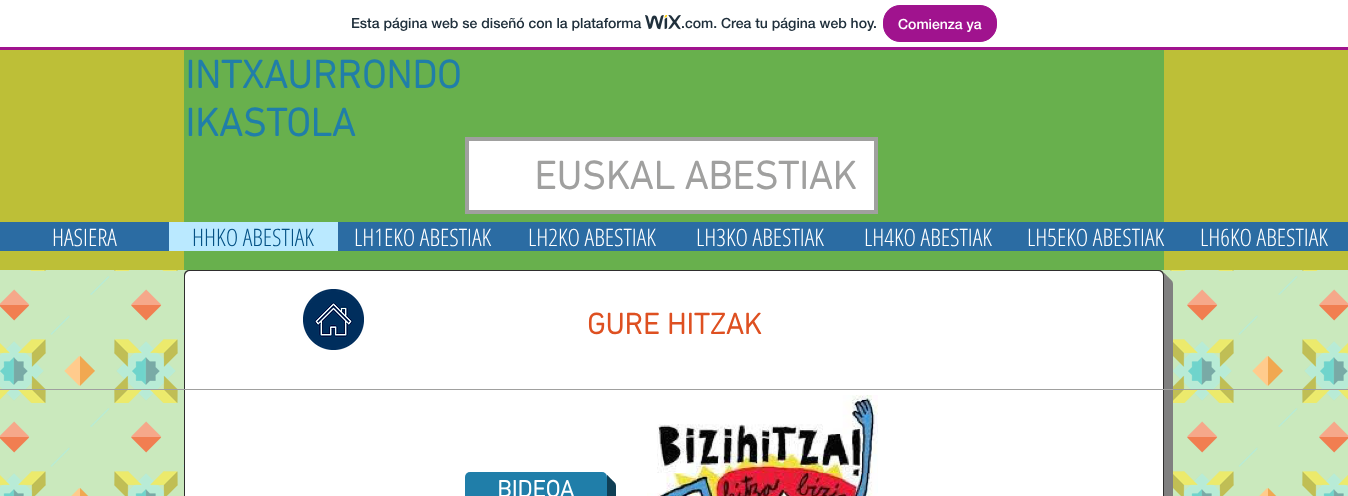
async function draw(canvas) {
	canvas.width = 1348;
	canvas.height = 496;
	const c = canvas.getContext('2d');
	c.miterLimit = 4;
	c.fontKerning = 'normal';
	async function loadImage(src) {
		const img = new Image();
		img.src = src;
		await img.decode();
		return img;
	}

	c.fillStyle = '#fff';
	c.fillRect(0, 0, 1348, 496);
	c.fillStyle = '#a0138e';
	c.fillRect(0, 47, 1348, 3);
	c.font = '500 14px "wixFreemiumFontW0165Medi"';
	c.fillStyle = '#20303c';
	c.fillText('Esta página web se diseñó con la plataforma', 351, 28);
	c.drawImage(await loadImage('img1.png'), 645, 15, 36, 15);
	c.fillText('.com. Crea tu página web hoy.', 681, 28);
	c.fillStyle = '#a0138e';
	c.beginPath();
	c.roundRect(883.5, 5.5, 113, 36, 16.5);
	c.fill();
	c.strokeStyle = '#a0138e';
	c.stroke();
	c.fillStyle = '#fff';
	c.fillText('Comienza ya', 898, 29);
	c.fillStyle = '#bdbf37';
	c.fillRect(0, 50, 1348, 220);
	c.fillStyle = '#68b04d';
	c.fillRect(184, 50, 980, 220);
	c.font = 'bold 40px "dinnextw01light"';
	c.fillStyle = '#207ea9';
	c.fillText('INTXAURRONDO', 185, 88);
	c.fillText('IKASTOLA', 185, 136);
	c.fillStyle = '#fff';
	c.beginPath();
	c.rect(467, 139, 409, 73);
	c.fill();
	c.strokeStyle = '#a0a09f';
	c.lineWidth = 4;
	c.stroke();
	c.fillStyle = '#a0a09f';
	c.fillText('EUSKAL ABESTIAK', 534, 189);
	c.fillStyle = '#2b6ca3';
	c.fillRect(0, 222, 169, 29);
	c.font = '300 24px Open Sans Condensed';
	c.fillStyle = '#fff';
	c.fillText('HASIERA', 52, 246);
	c.fillStyle = '#bae9ff';
	c.fillRect(169, 222, 169, 29);
	c.fillStyle = '#045184';
	c.fillText('HHKO ABESTIAK', 192, 246);
	c.fillStyle = '#2b6ca3';
	c.fillRect(338, 222, 1010, 29);
	c.fillStyle = '#fff';
	for (const [text, x, y] of [
		['LH1EKO ABESTIAK', 354, 246],
		['LH2KO ABESTIAK', 528, 246],
		['LH3KO ABESTIAK', 696, 246],
		['LH4KO ABESTIAK', 864, 246],
		['LH5EKO ABESTIAK', 1027, 246],
		['LH6KO ABESTIAK', 1200, 246],
	]) {
		c.fillText(text, x, y);
	}
	c.fillStyle = '#cae9bd';
	c.fillRect(0, 270, 1348, 226);
	c.drawImage(await loadImage('img4.png'), 0, 270, 1348, 226);
	c.fillStyle = '#808080';
	c.beginPath();
	c.moveTo(193, 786);
	c.lineTo(193, 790);
	c.bezierCurveTo(193, 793, 195, 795, 198, 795);
	c.lineTo(1168, 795);
	c.bezierCurveTo(1171, 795, 1173, 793, 1173, 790);
	c.lineTo(1173, 284);
	c.bezierCurveTo(1173, 281, 1171, 279, 1168, 279);
	c.lineTo(1164, 279);
	c.lineTo(1164, 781);
	c.bezierCurveTo(1164, 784, 1162, 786, 1159, 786);
	c.closePath();
	c.fill();
	c.beginPath();
	c.moveTo(191, 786);
	c.lineTo(191, 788);
	c.bezierCurveTo(191, 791, 193, 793, 196, 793);
	c.lineTo(1166, 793);
	c.bezierCurveTo(1169, 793, 1171, 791, 1171, 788);
	c.lineTo(1171, 282);
	c.bezierCurveTo(1171, 279, 1169, 277, 1166, 277);
	c.lineTo(1164, 277);
	c.lineTo(1164, 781);
	c.bezierCurveTo(1164, 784, 1162, 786, 1159, 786);
	c.closePath();
	c.fill();
	c.beginPath();
	c.moveTo(189, 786);
	c.bezierCurveTo(189, 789, 191, 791, 194, 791);
	c.lineTo(1164, 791);
	c.bezierCurveTo(1167, 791, 1169, 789, 1169, 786);
	c.lineTo(1169, 280);
	c.bezierCurveTo(1169, 277, 1167, 275, 1164, 275);
	c.lineTo(1164, 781);
	c.bezierCurveTo(1164, 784, 1162, 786, 1159, 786);
	c.closePath();
	c.fill();
	c.beginPath();
	c.moveTo(187, 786);
	c.bezierCurveTo(188, 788, 190, 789, 192, 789);
	c.lineTo(1162, 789);
	c.bezierCurveTo(1165, 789, 1167, 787, 1167, 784);
	c.lineTo(1167, 278);
	c.bezierCurveTo(1167, 276, 1166, 274, 1164, 273);
	c.lineTo(1164, 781);
	c.bezierCurveTo(1164, 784, 1162, 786, 1159, 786);
	c.closePath();
	c.fill();
	c.beginPath();
	c.moveTo(186, 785);
	c.bezierCurveTo(187, 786, 188, 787, 190, 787);
	c.lineTo(1160, 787);
	c.bezierCurveTo(1163, 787, 1165, 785, 1165, 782);
	c.lineTo(1165, 276);
	c.bezierCurveTo(1165, 274, 1164, 273, 1163, 272);
	c.bezierCurveTo(1164, 273, 1164, 274, 1164, 275);
	c.lineTo(1164, 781);
	c.bezierCurveTo(1164, 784, 1162, 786, 1159, 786);
	c.lineTo(189, 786);
	c.bezierCurveTo(188, 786, 187, 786, 186, 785);
	c.closePath();
	c.fill();
	c.fillStyle = '#2f2e2e';
	c.beginPath();
	c.roundRect(184, 270, 980, 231, 5);
	c.fill();
	c.fillStyle = '#fff';
	c.beginPath();
	c.roundRect(185, 271, 978, 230, 5);
	c.fill();
	c.drawImage(await loadImage('img2.png'), 303, 289, 61, 61);
	c.font = 'bold 30px "dinnextw01light"';
	c.fillStyle = '#de5021';
	c.fillText('GURE HITZAK', 587, 334);
	c.fillStyle = '#a0a09f';
	c.fillRect(0, 389, 1348, 1);
	c.fillStyle = '#103f55';
	c.beginPath();
	c.moveTo(474, 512);
	c.lineTo(474, 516);
	c.bezierCurveTo(474, 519, 476, 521, 479, 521);
	c.lineTo(611, 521);
	c.bezierCurveTo(614, 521, 616, 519, 616, 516);
	c.lineTo(616, 486);
	c.bezierCurveTo(616, 483, 614, 481, 611, 481);
	c.lineTo(607, 481);
	c.lineTo(607, 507);
	c.bezierCurveTo(607, 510, 605, 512, 602, 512);
	c.closePath();
	c.fill();
	c.beginPath();
	c.moveTo(472, 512);
	c.lineTo(472, 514);
	c.bezierCurveTo(472, 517, 474, 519, 477, 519);
	c.lineTo(609, 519);
	c.bezierCurveTo(612, 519, 614, 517, 614, 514);
	c.lineTo(614, 484);
	c.bezierCurveTo(614, 481, 612, 479, 609, 479);
	c.lineTo(607, 479);
	c.lineTo(607, 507);
	c.bezierCurveTo(607, 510, 605, 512, 602, 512);
	c.closePath();
	c.fill();
	c.beginPath();
	c.moveTo(470, 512);
	c.bezierCurveTo(470, 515, 472, 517, 475, 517);
	c.lineTo(607, 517);
	c.bezierCurveTo(610, 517, 612, 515, 612, 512);
	c.lineTo(612, 482);
	c.bezierCurveTo(612, 479, 610, 477, 607, 477);
	c.lineTo(607, 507);
	c.bezierCurveTo(607, 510, 605, 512, 602, 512);
	c.closePath();
	c.fill();
	c.beginPath();
	c.moveTo(468, 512);
	c.bezierCurveTo(469, 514, 471, 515, 473, 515);
	c.lineTo(605, 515);
	c.bezierCurveTo(608, 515, 610, 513, 610, 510);
	c.lineTo(610, 480);
	c.bezierCurveTo(610, 478, 609, 476, 607, 475);
	c.lineTo(607, 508);
	c.bezierCurveTo(605, 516, 587, 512, 580, 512);
	c.closePath();
	c.fill();
	c.beginPath();
	c.moveTo(467, 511);
	c.bezierCurveTo(468, 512, 469, 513, 471, 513);
	c.lineTo(603, 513);
	c.bezierCurveTo(606, 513, 608, 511, 608, 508);
	c.lineTo(608, 478);
	c.bezierCurveTo(608, 476, 607, 475, 606, 474);
	c.bezierCurveTo(607, 475, 607, 476, 607, 477);
	c.lineTo(607, 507);
	c.bezierCurveTo(607, 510, 605, 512, 602, 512);
	c.lineTo(470, 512);
	c.bezierCurveTo(469, 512, 468, 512, 467, 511);
	c.closePath();
	c.fill();
	c.fillStyle = '#207ea9';
	c.beginPath();
	c.roundRect(465, 472, 142, 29, 5);
	c.fill();
	c.font = 'bold 24px "dinnextw01light"';
	c.fillStyle = '#fff';
	c.fillText('BIDEOA', 497, 497);
	c.drawImage(await loadImage('img3.png'), 647, 395, 231, 101);
}

draw(document.querySelector('canvas'));
